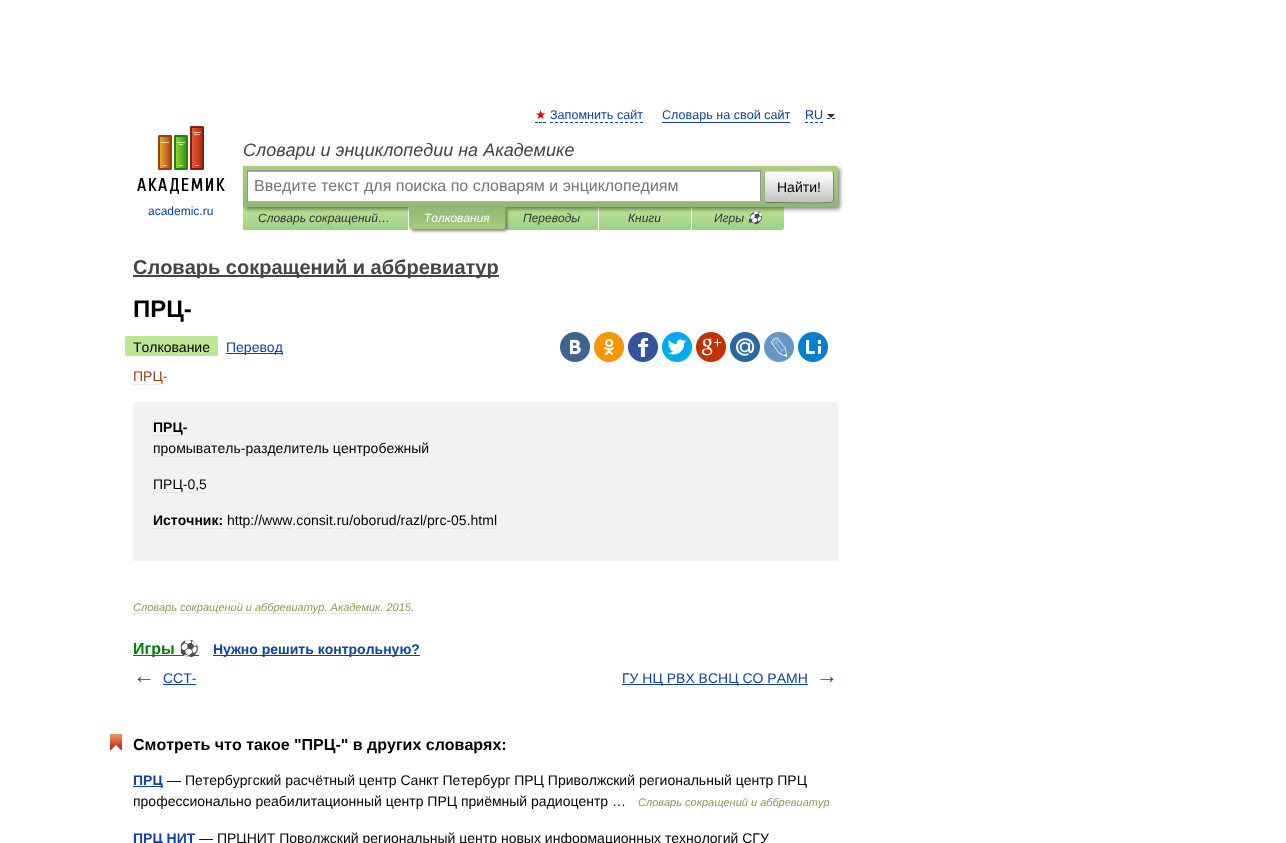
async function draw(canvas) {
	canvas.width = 1286;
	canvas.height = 843;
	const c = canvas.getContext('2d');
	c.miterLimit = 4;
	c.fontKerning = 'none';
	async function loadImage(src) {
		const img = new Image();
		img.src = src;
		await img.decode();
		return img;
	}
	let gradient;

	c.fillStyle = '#fff';
	c.fillRect(0, 0, 1286, 843);
	c.font = '12.6px DejaVu Sans';
	c.fillStyle = '#c00';
	c.fillText('★', 535, 119);
	c.beginPath();
	c.moveTo(535, 122.5);
	c.lineTo(538, 122.5);
	c.moveTo(539, 122.5);
	c.lineTo(542, 122.5);
	c.moveTo(543, 122.5);
	c.lineTo(546, 122.5);
	c.strokeStyle = '#04a';
	c.stroke();
	c.font = '12.6px Liberation Sans';
	c.fillStyle = '#0d44a0';
	c.fillText('Запомнить сайт', 550, 119);
	c.beginPath();
	c.moveTo(550, 122.5);
	c.lineTo(643, 122.5);
	c.setLineDash([3, 2]);
	c.stroke();
	c.fillText('Словарь на свой сайт', 662, 119);
	c.fillRect(662, 122, 128, 1);
	c.beginPath();
	c.moveTo(805, 122.5);
	c.lineTo(823, 122.5);
	c.stroke();
	c.beginPath();
	c.moveTo(827, 118.5);
	c.lineTo(830, 118.5);
	c.moveTo(832, 118.5);
	c.lineTo(835, 118.5);
	c.setLineDash([]);
	c.stroke();
	c.fillText('RU', 805, 119);
	c.fillStyle = '#333';
	c.beginPath();
	c.moveTo(827, 114);
	c.lineTo(835, 114);
	c.lineTo(831, 118);
	c.closePath();
	c.fill();
	c.font = 'italic 18px Liberation Sans';
	c.fillStyle = '#454545';
	c.fillText('Словари и энциклопедии на Академике', 243, 156);
	gradient = c.createLinearGradient(326, 207, 326, 230);
	gradient.addColorStop(0, '#bde693');
	gradient.addColorStop(1, '#a0ce8a');
	c.fillStyle = gradient;
	c.fillRect(243, 207, 165, 23);
	gradient = c.createLinearGradient(552, 207, 552, 230);
	gradient.addColorStop(0, '#bde693');
	gradient.addColorStop(1, '#a0ce8a');
	c.fillStyle = gradient;
	c.fillRect(506, 207, 92, 23);
	gradient = c.createLinearGradient(645, 207, 645, 230);
	gradient.addColorStop(0, '#bde693');
	gradient.addColorStop(1, '#a0ce8a');
	c.fillStyle = gradient;
	c.fillRect(599, 207, 92, 23);
	gradient = c.createLinearGradient(738, 207, 738, 230);
	gradient.addColorStop(0, '#bde693');
	gradient.addColorStop(1, '#a0ce8a');
	c.fillStyle = gradient;
	c.beginPath();
	c.roundRect(692, 207, 92, 23, [0, 0, 3, 0]);
	c.fill();
	c.fillStyle = '#00000080';
	c.filter = 'blur(2px)';
	c.beginPath();
	c.roundRect(245, 168, 595, 41, 3);
	c.fill();
	c.filter = 'none';
	gradient = c.createLinearGradient(541, 166, 541, 207);
	gradient.addColorStop(0, '#abcf7e');
	gradient.addColorStop(1, '#8eb874');
	c.fillStyle = gradient;
	c.beginPath();
	c.roundRect(243, 166, 595, 41, [0, 3, 3, 0]);
	c.fill();
	for (const [x, y, w, h, color] of [
		[248, 172, 512, 29, '#fff'],
		[248, 171, 512, 1, '#b3b3b3'],
		[247, 170, 514, 1, '#949494'],
		[760, 170, 1, 32, '#949494'],
		[247, 201, 514, 1, '#b4b4b4'],
		[247, 170, 1, 32, '#949494'],
	]) {
		c.fillStyle = color;
		c.fillRect(x, y, w, h);
	}
	c.font = '16px Liberation Sans';
	c.fillStyle = '#757575';
	c.fillText('Введите текст для поиска по словарям и энциклопедиям', 254, 191);
	c.save();
	c.beginPath();
	c.roundRect(764, 171, 70, 32, 3);
	c.clip();
	gradient = c.createLinearGradient(799, 142, 799, 172);
	gradient.addColorStop(0, '#fff');
	gradient.addColorStop(1, '#c1c1c1');
	c.fillStyle = gradient;
	c.fillRect(764, 171, 70, 1);
	gradient = c.createLinearGradient(799, 172, 799, 202);
	gradient.addColorStop(0, '#fff');
	gradient.addColorStop(1, '#c1c1c1');
	c.fillStyle = gradient;
	c.fillRect(764, 172, 70, 30);
	gradient = c.createLinearGradient(799, 202, 799, 232);
	gradient.addColorStop(0, '#fff');
	gradient.addColorStop(1, '#c1c1c1');
	c.fillStyle = gradient;
	c.fillRect(764, 202, 70, 1);
	c.restore();
	c.beginPath();
	c.moveTo(765, 172);
	c.lineTo(767, 171.5);
	c.lineTo(777.5, 171.5);
	c.bezierCurveTo(784, 171.5, 830.5, 170.5, 832.5, 172);
	c.lineTo(833, 172);
	c.strokeStyle = '#d1e4bc';
	c.stroke();
	c.beginPath();
	c.moveTo(833, 172);
	c.bezierCurveTo(833, 172.5, 833.5, 173.5, 833.5, 174);
	c.lineTo(833.5, 200);
	c.bezierCurveTo(833.5, 200.5, 833, 201.5, 833, 202);
	c.strokeStyle = '#7a8e69';
	c.stroke();
	c.beginPath();
	c.moveTo(833, 202);
	c.lineTo(832.5, 202);
	c.bezierCurveTo(830.5, 203.5, 784, 202.5, 777.5, 202.5);
	c.lineTo(767, 202.5);
	c.lineTo(765, 202);
	c.strokeStyle = '#5d7250';
	c.stroke();
	c.beginPath();
	c.moveTo(765, 202);
	c.bezierCurveTo(765, 201.5, 764.5, 200.5, 764.5, 200);
	c.lineTo(764.5, 174);
	c.bezierCurveTo(764.5, 173.5, 765, 172.5, 765, 172);
	c.strokeStyle = '#9aae89';
	c.stroke();
	c.font = '14px Liberation Sans';
	c.fillStyle = '#000';
	c.fillText('Найти!', 777, 192);
	c.drawImage(await loadImage('img1.png'), 137, 126, 88, 68);
	c.font = '12px Liberation Sans';
	c.fillStyle = '#0d44a0';
	c.fillText('academic.ru', 148, 215);
	c.font = 'italic 12px Liberation Sans';
	c.fillStyle = '#353535';
	c.fillText('Словарь сокращений…', 258, 222);
	c.fillStyle = '#00000080';
	c.filter = 'blur(1.5px)';
	c.beginPath();
	c.roundRect(411, 209, 96, 22, 3);
	c.fill();
	c.filter = 'none';
	gradient = c.createLinearGradient(457, 207, 457, 229);
	gradient.addColorStop(0, '#8fb875');
	gradient.addColorStop(1, '#a7cc7d');
	c.fillStyle = gradient;
	c.beginPath();
	c.roundRect(409, 207, 96, 22, [0, 0, 3, 3]);
	c.fill();
	c.fillStyle = '#fff';
	c.fillText('Толкования', 424, 222);
	c.fillStyle = '#353535';
	for (const [text, x, y] of [
		['Переводы', 523, 222],
		['Книги', 628, 222],
		['Игры', 714, 222],
	]) {
		c.fillText(text, x, y);
	}
	c.font = 'italic 12px Noto Color Emoji';
	c.fillText('⚽', 747, 222);
	c.fillStyle = '#454545';
	c.fillRect(133, 275, 366, 2);
	c.font = 'bold 20px Liberation Sans';
	c.fillText('Словарь сокращений и аббревиатур', 133, 274);
	c.font = 'bold 24px Liberation Sans';
	c.fillStyle = '#000';
	c.fillText('ПРЦ-', 133, 317);
	c.fillStyle = '#bde693';
	c.beginPath();
	c.roundRect(133, 336, 85, 20, [0, 2, 2, 0]);
	c.fill();
	c.font = '14px Liberation Sans';
	c.fillStyle = '#000';
	c.fillText('Толкование', 133, 352);
	c.fillStyle = '#bde693';
	c.beginPath();
	c.roundRect(125, 336, 8, 20, [2, 0, 0, 2]);
	c.fill();
	c.fillStyle = '#0d44a0';
	c.fillRect(226, 353, 57, 1);
	c.fillText('Перевод', 226, 352);
	c.drawImage(await loadImage('img2.png'), 560, 332, 30, 30);
	c.drawImage(await loadImage('img3.png'), 594, 332, 30, 30);
	c.drawImage(await loadImage('img4.png'), 628, 332, 30, 30);
	c.drawImage(await loadImage('img5.png'), 662, 332, 30, 30);
	c.drawImage(await loadImage('img6.png'), 696, 332, 30, 30);
	c.drawImage(await loadImage('img7.png'), 730, 332, 30, 30);
	c.drawImage(await loadImage('img8.png'), 764, 332, 30, 30);
	c.drawImage(await loadImage('img9.png'), 798, 332, 30, 30);
	c.fillStyle = '#8b4513';
	c.fillText('ПРЦ-', 133, 381);
	c.beginPath();
	c.moveTo(133, 384.5);
	c.lineTo(163, 384.5);
	c.strokeStyle = '#d9d9d9';
	c.setLineDash([1, 1]);
	c.stroke();
	c.fillStyle = '#f2f2f2';
	c.fillRect(133, 402, 705, 159);
	c.font = 'bold 14px Liberation Sans';
	c.fillStyle = '#000';
	c.fillText('ПРЦ-', 153, 432);
	c.beginPath();
	c.moveTo(153, 435.5);
	c.lineTo(183, 435.5);
	c.stroke();
	c.font = '14px Liberation Sans';
	c.fillText('промыватель-разделитель центробежный', 153, 453);
	c.beginPath();
	c.moveTo(153, 456.5);
	c.lineTo(241, 456.5);
	c.stroke();
	c.beginPath();
	c.moveTo(245, 456.5);
	c.lineTo(329, 456.5);
	c.stroke();
	c.beginPath();
	c.moveTo(333, 456.5);
	c.lineTo(429, 456.5);
	c.stroke();
	c.fillText('ПРЦ-0,5', 153, 489);
	c.beginPath();
	c.moveTo(153, 492.5);
	c.lineTo(183, 492.5);
	c.stroke();
	c.beginPath();
	c.moveTo(187, 492.5);
	c.lineTo(195, 492.5);
	c.moveTo(199, 492.5);
	c.lineTo(207, 492.5);
	c.stroke();
	c.font = 'bold 14px Liberation Sans';
	c.fillText('Источник:', 153, 525);
	c.beginPath();
	c.moveTo(153, 528.5);
	c.lineTo(223, 528.5);
	c.stroke();
	c.font = '14px Liberation Sans';
	c.fillText('http://www.consit.ru/oborud/razl/prc-05.html', 227, 525);
	c.beginPath();
	c.moveTo(227, 528.5);
	c.lineTo(254, 528.5);
	c.stroke();
	c.beginPath();
	c.moveTo(262, 528.5);
	c.lineTo(292, 528.5);
	c.stroke();
	c.beginPath();
	c.moveTo(296, 528.5);
	c.lineTo(333, 528.5);
	c.moveTo(337, 528.5);
	c.lineTo(349, 528.5);
	c.stroke();
	c.beginPath();
	c.moveTo(353, 528.5);
	c.lineTo(397, 528.5);
	c.stroke();
	c.beginPath();
	c.moveTo(401, 528.5);
	c.lineTo(423, 528.5);
	c.moveTo(427, 528.5);
	c.lineTo(446, 528.5);
	c.stroke();
	c.beginPath();
	c.moveTo(451, 528.5);
	c.lineTo(467, 528.5);
	c.moveTo(471, 528.5);
	c.lineTo(497, 528.5);
	c.stroke();
	c.beginPath();
	c.moveTo(133, 613.5);
	c.lineTo(177, 613.5);
	c.stroke();
	c.font = 'italic 11px Liberation Sans';
	c.fillStyle = '#939756';
	c.fillText('Словарь', 133, 611);
	c.beginPath();
	c.moveTo(180, 613.5);
	c.lineTo(243, 613.5);
	c.stroke();
	c.fillText('сокращений и', 180, 611);
	c.beginPath();
	c.moveTo(246, 613.5);
	c.lineTo(247, 613.5);
	c.moveTo(248, 613.5);
	c.lineTo(249, 613.5);
	c.moveTo(250, 613.5);
	c.lineTo(251, 613.5);
	c.setLineDash([]);
	c.stroke();
	c.beginPath();
	c.moveTo(255, 613.5);
	c.lineTo(325, 613.5);
	c.setLineDash([1, 1]);
	c.stroke();
	c.fillText('аббревиатур. Академик. 2015.', 255, 611);
	c.beginPath();
	c.moveTo(331, 613.5);
	c.lineTo(381, 613.5);
	c.stroke();
	c.beginPath();
	c.moveTo(387, 613.5);
	c.lineTo(411, 613.5);
	c.stroke();
	c.fillStyle = '#008000';
	c.fillRect(133, 655, 66, 1);
	c.font = 'bold 16px Liberation Sans';
	c.fillText('Игры', 133, 654);
	c.font = 'bold 16px Noto Color Emoji';
	c.fillText('⚽', 179, 654);
	c.fillStyle = '#0d44a0';
	c.fillRect(213, 655, 207, 1);
	c.font = 'bold 14px Liberation Sans';
	c.fillText('Нужно решить контрольную?', 213, 654);
	c.font = 'bold 22px Liberation Sans';
	c.fillText('←', 133, 683);
	c.font = '14px Liberation Sans';
	c.fillText('ССТ-', 163, 683);
	c.fillRect(163, 684, 33, 1);
	c.fillRect(622, 684, 186, 1);
	c.fillText('ГУ НЦ РВХ ВСНЦ СО РАМН', 622, 683);
	c.font = 'bold 22px Liberation Sans';
	c.fillText('→', 816, 683);
	c.drawImage(await loadImage('img10.png'), 110, 734, 12, 16);
	c.font = 'bold 16px Liberation Sans';
	c.fillStyle = '#000';
	c.fillText('Смотреть что такое "ПРЦ-" в других словарях:', 133, 750);
	c.fillStyle = '#0d44a0';
	c.fillRect(133, 786, 30, 1);
	c.font = 'bold 14px Liberation Sans';
	c.fillText('ПРЦ', 133, 785);
	c.font = '14px Liberation Sans';
	c.fillStyle = '#000';
	c.fillText('— Петербургский расчётный центр Санкт Петербург ПРЦ Приволжский региональный центр ПРЦ', 167, 785);
	c.fillText('профессионально реабилитационный центр ПРЦ приёмный радиоцентр …', 133, 806);
	c.font = 'italic 11px Liberation Sans';
	c.fillStyle = '#939756';
	c.fillText('Словарь сокращений и аббревиатур', 638, 806);
	c.font = 'bold 14px Liberation Sans';
	c.fillStyle = '#0d44a0';
	c.fillText('ПРЦ НИТ', 133, 843);
	c.font = '14px Liberation Sans';
	c.fillStyle = '#000';
	c.fillText('— ПРЦНИТ Поволжский региональный центр новых информационных технологий СГУ', 199, 843);
}

draw(document.querySelector('canvas'));
